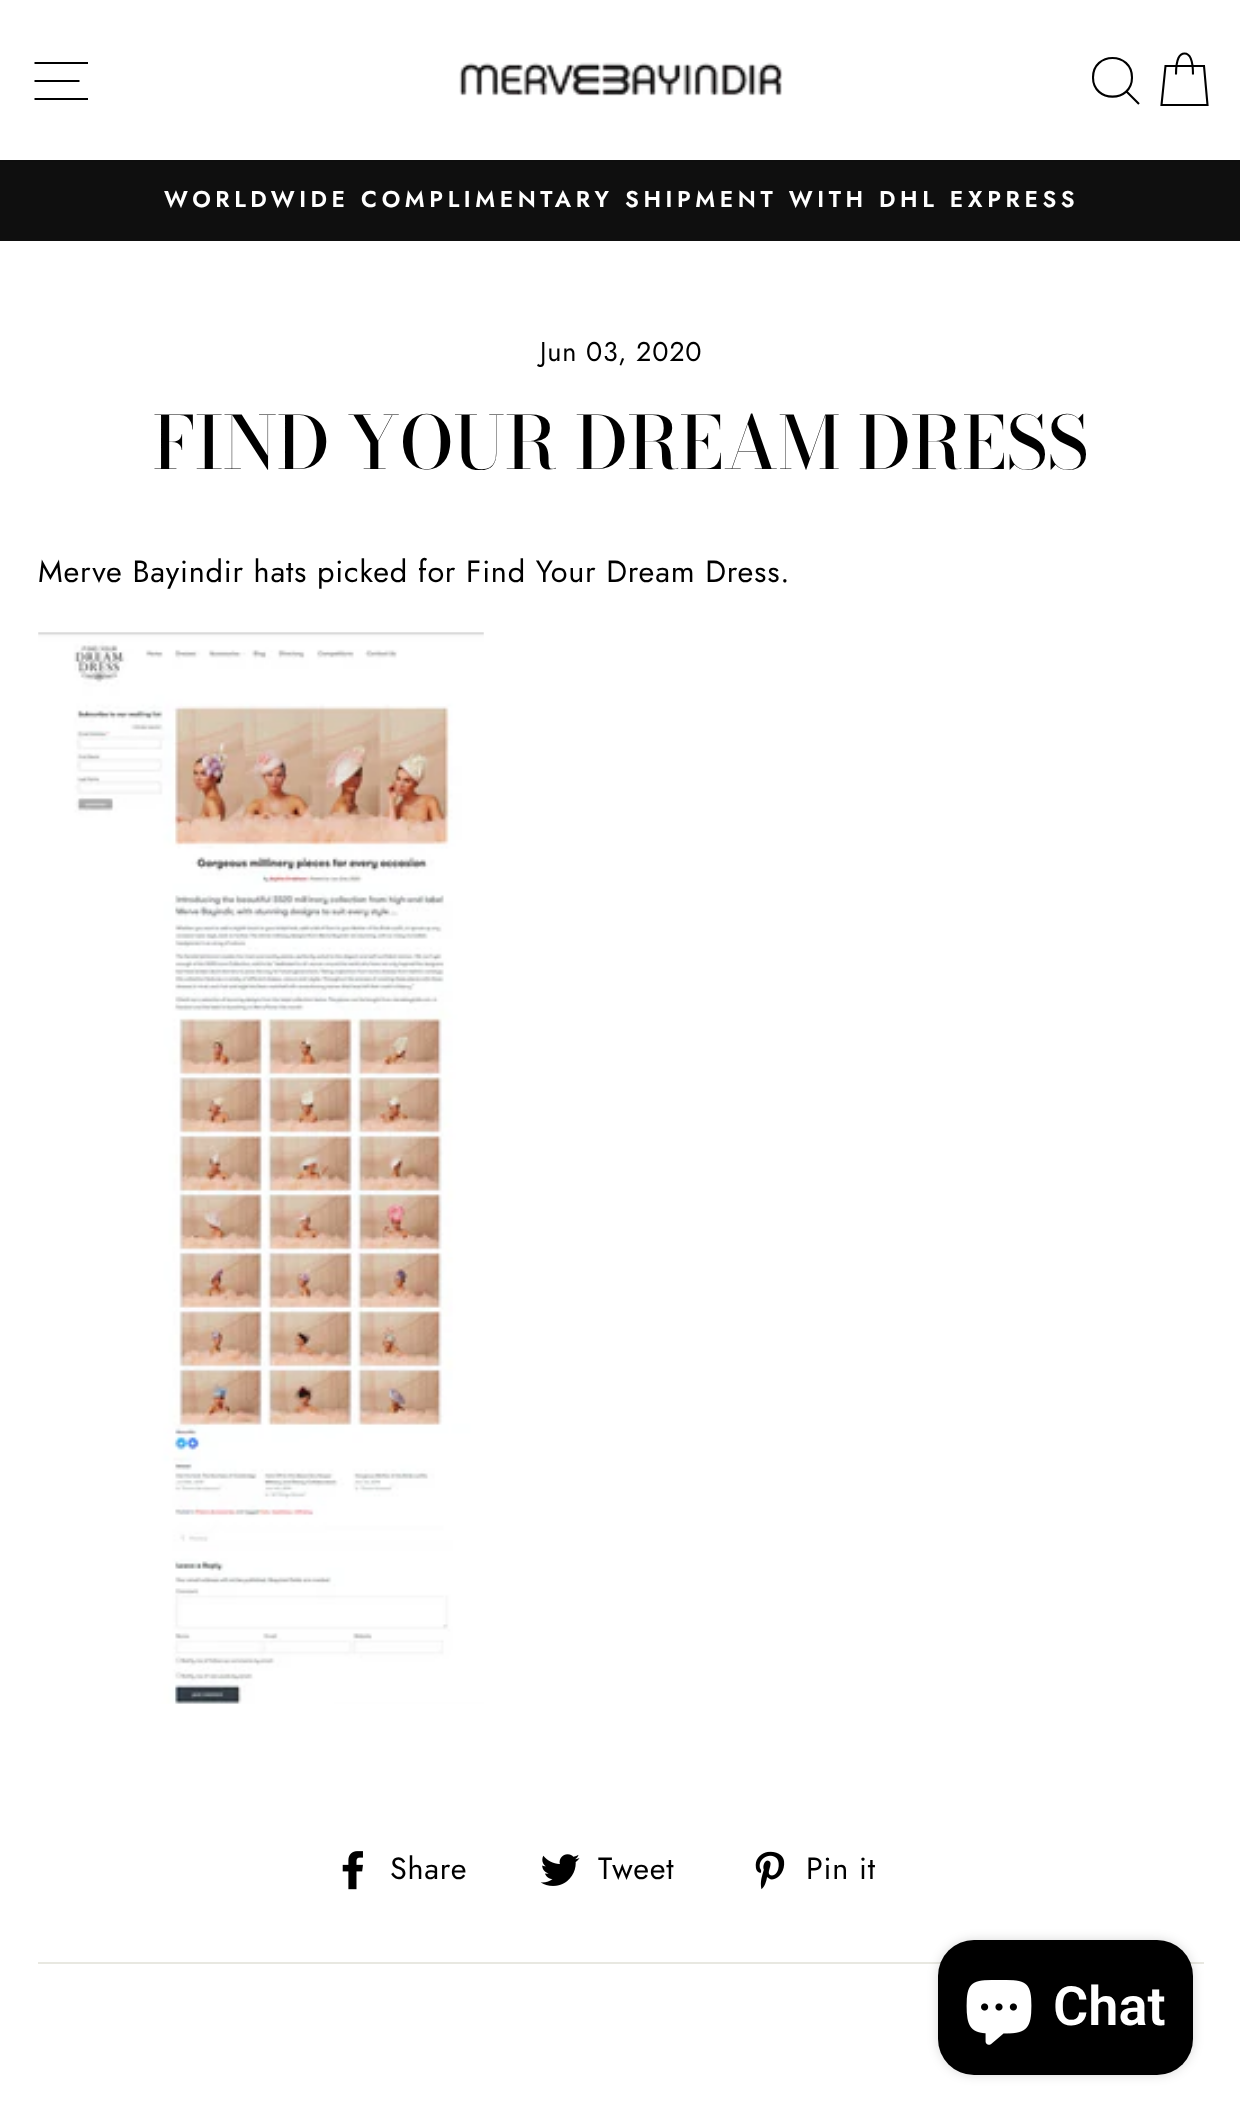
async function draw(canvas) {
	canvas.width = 1240;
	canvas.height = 2121;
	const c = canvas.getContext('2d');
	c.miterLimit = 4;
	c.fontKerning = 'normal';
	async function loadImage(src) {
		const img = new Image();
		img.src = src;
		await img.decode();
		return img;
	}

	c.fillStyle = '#fff';
	c.fillRect(0, 0, 1240, 2121);
	c.fillStyle = '#0f0f0f';
	c.fillRect(0, 160, 1240, 81);
	c.fillStyle = '#00000033';
	c.filter = 'blur(1px)';
	c.beginPath();
	c.rect(0, 0, 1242, 160);
	c.fill();
	c.filter = 'none';
	c.fillStyle = '#fff';
	c.fillRect(0, 0, 1240, 160);
	c.beginPath();
	c.moveTo(34.5, 63);
	c.lineTo(88, 63);
	c.moveTo(34.5, 81);
	c.lineTo(79.5, 81);
	c.moveTo(34.5, 99);
	c.lineTo(88, 99);
	c.strokeStyle = '#000';
	c.lineWidth = 2.1;
	c.stroke();
	c.drawImage(await loadImage('img1.png'), 459, 62, 324, 34);
	c.beginPath();
	c.moveTo(1132, 77.5);
	c.bezierCurveTo(1132, 103, 1093, 103, 1093, 77.5);
	c.bezierCurveTo(1093, 51.5, 1132, 51.5, 1132, 77.5);
	c.closePath();
	c.moveTo(1139, 104);
	c.lineTo(1126.5, 91.5);
	c.stroke();
	c.beginPath();
	c.moveTo(1176, 74.5);
	c.bezierCurveTo(1176, 58, 1180, 53.5, 1184.5, 53.5);
	c.bezierCurveTo(1189, 53.5, 1193, 58, 1193, 74.5);
	c.moveTo(1165.5, 66);
	c.lineTo(1204, 66);
	c.lineTo(1207.5, 105);
	c.lineTo(1161.5, 105);
	c.closePath();
	c.stroke();
	c.letterSpacing = '4.6px';
	c.font = '600 22.95px Jost';
	c.fillText('WORLDWIDE COMPLIMENTARY SHIPMENT WITH DHL EXPRESS', 164, 207);
	c.letterSpacing = '0.77px';
	c.font = '27px Jost';
	c.fillStyle = '#000';
	c.fillText('Jun 03, 2020', 540, 361);
	c.letterSpacing = '0px';
	c.font = '500 72.7px Bodoni Moda';
	c.fillText('FIND YOUR DREAM DRESS', 153, 469);
	c.letterSpacing = '0.77px';
	c.font = '30.6px Jost';
	c.fillText('Merve Bayindir hats picked for Find Your Dream Dress.', 38, 582);
	c.drawImage(await loadImage('img2.png'), 38, 632, 446, 1072);
	c.drawImage(await loadImage('img3.png'), 342, 1851, 21, 39);
	c.fillText('Share', 390, 1879);
	c.drawImage(await loadImage('img4.png'), 540, 1854, 40, 32);
	c.fillText('Tweet', 598, 1879);
	c.drawImage(await loadImage('img5.png'), 755, 1851, 30, 39);
	c.fillText('Pin it', 806, 1879);
	c.fillStyle = '#e8e8e1';
	c.fillRect(38, 1962, 1166, 2);
	c.fillStyle = '#00000026';
	c.filter = 'blur(5.5px)';
	c.beginPath();
	c.roundRect(938, 1940, 255, 135, 36);
	c.fill();
	c.filter = 'none';
	c.fillStyle = '#000';
	c.beginPath();
	c.roundRect(938, 1940, 255, 135, 36);
	c.fill();
	c.drawImage(await loadImage('img6.png'), 966, 1980, 66, 65);
	c.letterSpacing = '0px';
	c.font = '600 54px Roboto';
	c.fillStyle = '#fff';
	c.fillText('Chat', 1053, 2025);
}

draw(document.querySelector('canvas'));
